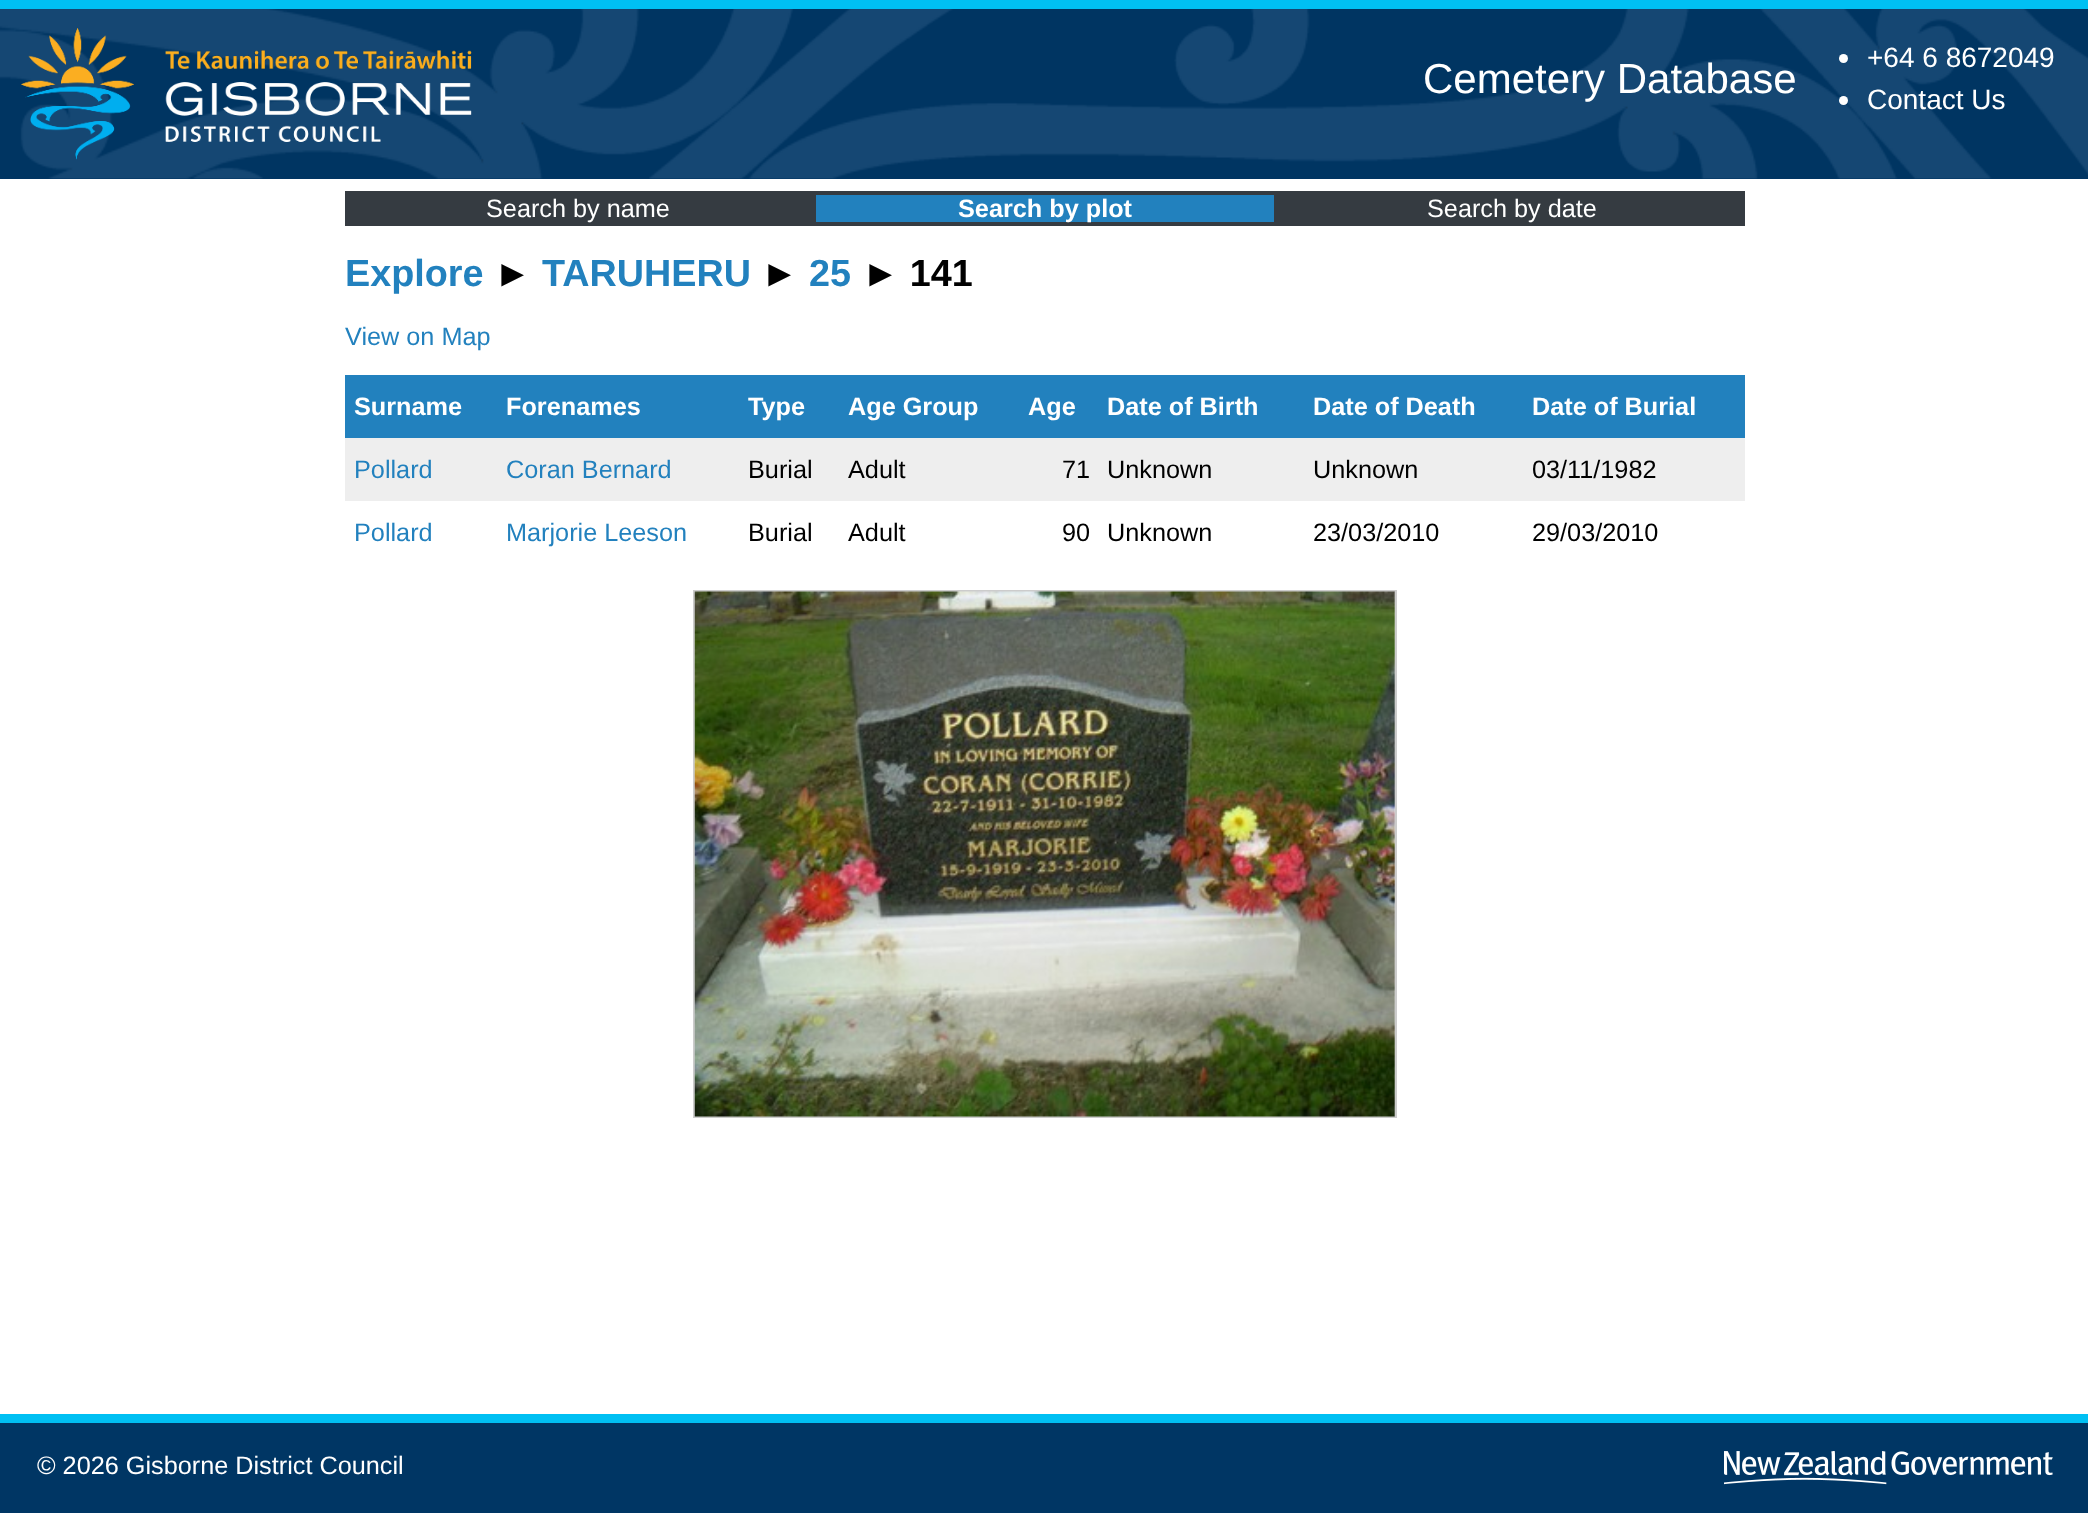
async function draw(canvas) {
	canvas.width = 2088;
	canvas.height = 1513;
	const c = canvas.getContext('2d');
	c.miterLimit = 4;
	c.fontKerning = 'normal';
	async function loadImage(src) {
		const img = new Image();
		img.src = src;
		await img.decode();
		return img;
	}

	c.fillStyle = '#fff';
	c.fillRect(0, 0, 2088, 1513);
	c.fillStyle = '#003562';
	c.fillRect(0, 178, 2088, 1);
	c.drawImage(await loadImage('img1.png'), 0, 9, 2088, 170);
	c.fillStyle = '#00c0f3';
	c.fillRect(0, 0, 2088, 9);
	c.drawImage(await loadImage('img2.png'), 21, 28, 113, 132);
	c.drawImage(await loadImage('img3.png'), 165, 50, 307, 92);
	c.font = '42px Liberation Sans';
	c.fillStyle = '#fff';
	c.fillText('Cemetery Database', 1423, 93);
	c.beginPath();
	c.arc(1843.5, 58.5, 4.5, 0, 2 * Math.PI);
	c.fill();
	c.font = '28px Liberation Sans';
	c.fillText('+64 6 8672049', 1867, 67);
	c.beginPath();
	c.arc(1843.5, 100.5, 4.5, 0, 2 * Math.PI);
	c.fill();
	c.fillText('Contact Us', 1867, 109);
	c.fillStyle = '#353b41';
	c.fillRect(345, 191, 1400, 35);
	c.font = '25.25px Liberation Sans';
	c.fillStyle = '#fff';
	c.fillText('Search by name', 486, 217);
	c.fillStyle = '#2281be';
	c.fillRect(816, 195, 458, 27);
	c.font = 'bold 25.25px Liberation Sans';
	c.fillStyle = '#fff';
	c.fillText('Search by plot', 958, 217);
	c.font = '25.25px Liberation Sans';
	c.fillText('Search by date', 1427, 217);
	c.font = 'bold 37.75px Liberation Sans';
	c.fillStyle = '#2281be';
	c.fillText('Explore', 345, 286);
	c.fillStyle = '#000';
	c.fillText('►', 494, 286);
	c.fillStyle = '#2281be';
	c.fillText('TARUHERU', 542, 286);
	c.fillStyle = '#000';
	c.fillText('►', 761, 286);
	c.fillStyle = '#2281be';
	c.fillText('25', 809, 286);
	c.fillStyle = '#000';
	c.fillText('► 141', 862, 286);
	c.font = '25.25px Liberation Sans';
	c.fillStyle = '#2281be';
	c.fillText('View on Map', 345, 345);
	c.fillRect(345, 375, 1400, 63);
	c.font = 'bold 25.25px Liberation Sans';
	c.fillStyle = '#fff';
	for (const [text, x, y] of [
		['Surname', 354, 415],
		['Forenames', 506, 415],
		['Type', 748, 415],
		['Age Group', 848, 415],
		['Age', 1028, 415],
		['Date of Birth', 1107, 415],
		['Date of Death', 1313, 415],
		['Date of Burial', 1532, 415],
	]) {
		c.fillText(text, x, y);
	}
	c.fillStyle = '#eee';
	c.fillRect(345, 438, 1400, 63);
	c.font = '25.25px Liberation Sans';
	c.fillStyle = '#2281be';
	c.fillText('Pollard', 354, 478);
	c.fillText('Coran Bernard', 506, 478);
	c.fillStyle = '#000';
	for (const [text, x, y] of [
		['Burial', 748, 478],
		['Adult', 848, 478],
		['71', 1062, 478],
		['Unknown', 1107, 478],
		['Unknown', 1313, 478],
		['03/11/1982', 1532, 478],
	]) {
		c.fillText(text, x, y);
	}
	c.fillStyle = '#2281be';
	c.fillText('Pollard', 354, 541);
	c.fillText('Marjorie Leeson', 506, 541);
	c.fillStyle = '#000';
	for (const [text, x, y] of [
		['Burial', 748, 541],
		['Adult', 848, 541],
		['90', 1062, 541],
		['Unknown', 1107, 541],
		['23/03/2010', 1313, 541],
		['29/03/2010', 1532, 541],
	]) {
		c.fillText(text, x, y);
	}
	c.strokeStyle = '#ccc';
	c.lineWidth = 2;
	c.strokeRect(694, 591, 702, 526);
	c.drawImage(await loadImage('img4.png'), 694, 591, 701, 526);
	c.fillStyle = '#003664';
	c.fillRect(0, 1423, 2088, 90);
	c.fillStyle = '#00c0f3';
	c.fillRect(0, 1414, 2088, 9);
	c.fillStyle = '#fff';
	c.fillText('© 2026 Gisborne District Council', 37, 1474);
	c.drawImage(await loadImage('img5.png'), 1724, 1451, 329, 34);
}

draw(document.querySelector('canvas'));
